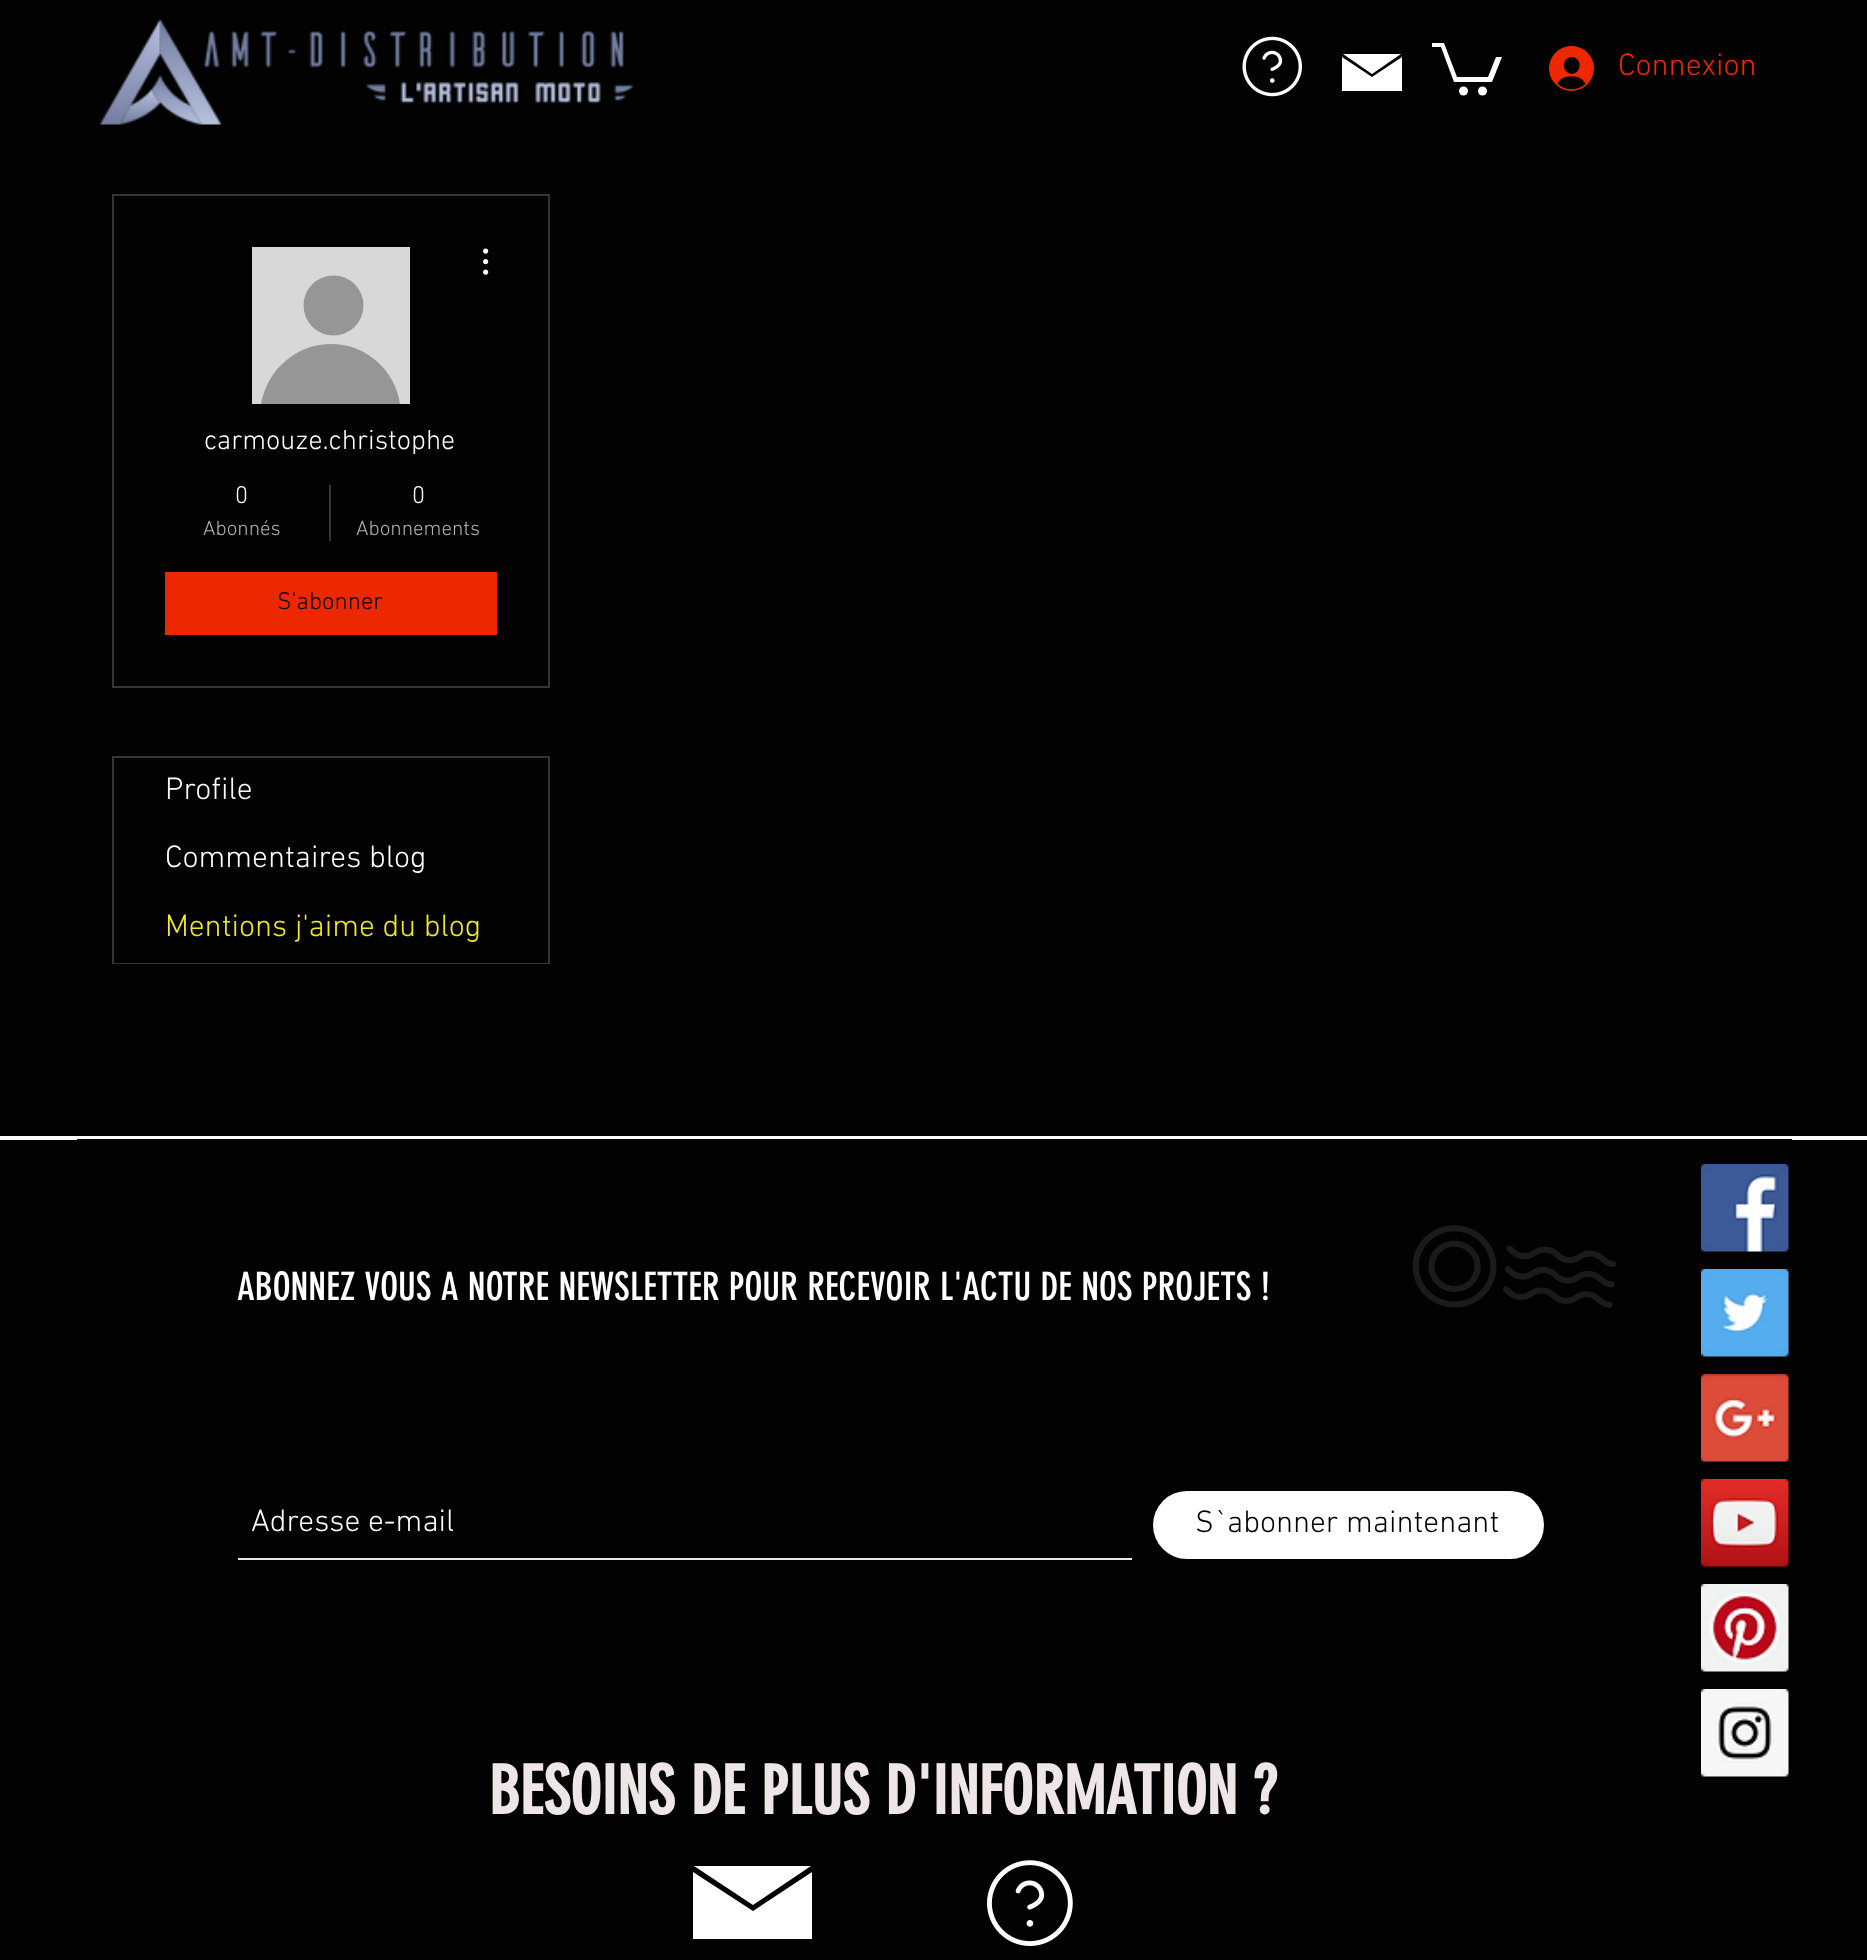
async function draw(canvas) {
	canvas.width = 1867;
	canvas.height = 1960;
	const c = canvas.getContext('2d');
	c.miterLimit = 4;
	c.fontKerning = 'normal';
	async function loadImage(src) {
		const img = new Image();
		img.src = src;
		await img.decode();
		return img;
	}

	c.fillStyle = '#020202';
	c.fillRect(0, 0, 1867, 1960);
	c.drawImage(await loadImage('img1.png'), 99, 19, 535, 106);
	c.drawImage(await loadImage('img2.png'), 1242, 36, 60, 61);
	c.fillStyle = '#fff';
	c.beginPath();
	c.moveTo(1372, 74);
	c.lineTo(1343, 54);
	c.lineTo(1401, 54);
	c.closePath();
	c.moveTo(1402, 57);
	c.lineTo(1372, 77);
	c.lineTo(1342, 57);
	c.lineTo(1342, 91);
	c.lineTo(1402, 91);
	c.closePath();
	c.fill();
	c.beginPath();
	c.moveTo(1502, 57);
	c.lineTo(1492, 82);
	c.lineTo(1454, 82);
	c.lineTo(1441, 47);
	c.lineTo(1432, 47);
	c.lineTo(1432, 43);
	c.lineTo(1444, 43);
	c.lineTo(1457, 77);
	c.lineTo(1488, 77);
	c.lineTo(1496, 57);
	c.fill();
	c.beginPath();
	c.arc(1482.5, 91, 4.5, 0, 2 * Math.PI);
	c.fill();
	c.beginPath();
	c.arc(1463.5, 91, 4.5, 0, 2 * Math.PI);
	c.fill();
	c.drawImage(await loadImage('img3.png'), 1549, 46, 45, 45);
	c.font = '300 31.5px "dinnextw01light"';
	c.fillStyle = '#ed2800';
	c.fillText('Connexion', 1618, 75);
	c.strokeStyle = '#353535';
	c.lineWidth = 2;
	c.strokeRect(113, 195, 436, 492);
	c.fillStyle = '#d8d8d8';
	c.fillRect(252, 247, 158, 157);
	c.fillStyle = '#969696';
	c.beginPath();
	c.arc(333.5, 305.5, 30, 0, 2 * Math.PI);
	c.fill();
	c.beginPath();
	c.moveTo(400, 404);
	c.bezierCurveTo(395, 370, 366, 344, 331, 344);
	c.bezierCurveTo(296, 344, 267, 370, 261, 404);
	c.closePath();
	c.fill();
	c.drawImage(await loadImage('img4.png'), 483, 248, 6, 27);
	c.font = '300 28px "dinnextw01light"';
	c.fillStyle = '#fff';
	c.fillText('carmouze.christophe', 204, 449);
	c.font = '300 24.5px "dinnextw01light"';
	c.fillText('0', 235, 503);
	c.font = '300 21px "dinnextw01light"';
	c.fillStyle = '#b3b3b3';
	c.fillText('Abonnés', 203, 535);
	c.fillStyle = '#353535';
	c.fillRect(329, 485, 2, 56);
	c.font = '300 24.5px "dinnextw01light"';
	c.fillStyle = '#fff';
	c.fillText('0', 412, 503);
	c.font = '300 21px "dinnextw01light"';
	c.fillStyle = '#b3b3b3';
	c.fillText('Abonnements', 356, 535);
	c.fillStyle = '#ed2800';
	c.fillRect(165, 572, 332, 63);
	c.font = '300 24.5px "dinnextw01light"';
	c.fillStyle = '#020202';
	c.fillText('S\'abonner', 277, 609);
	c.strokeRect(113, 757, 436, 206);
	c.font = '300 31.5px "dinnextw01light"';
	c.fillStyle = '#fff';
	c.fillText('Profile', 165, 799);
	c.fillText('Commentaires blog', 165, 867);
	c.fillStyle = '#020202';
	c.fillRect(114, 962, 434, 1);
	c.fillStyle = '#f2e82e';
	c.fillText('Mentions j\'aime du blog', 165, 936);
	c.fillStyle = '#fff';
	c.fillRect(0, 1136, 1867, 4);
	c.fillStyle = '#020202';
	c.fillRect(77, 1139, 1715, 1);
	c.font = '38.5px "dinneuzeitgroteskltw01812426"';
	c.fillStyle = '#fff';
	c.fillText('ABONNEZ VOUS A NOTRE NEWSLETTER POUR RECEVOIR L\'ACTU DE NOS PROJETS !', 237, 1300);
	c.drawImage(await loadImage('img5.png'), 1412, 1225, 205, 83);
	c.fillStyle = '#eee6e6';
	c.fillRect(238, 1558, 894, 2);
	c.font = '300 31.5px "dinnextw01light"';
	c.fillStyle = '#fff';
	c.fillText('Adresse e-mail', 251, 1531);
	c.beginPath();
	c.roundRect(1153, 1491, 391, 68, 34);
	c.fill();
	c.drawImage(await loadImage('img6.png'), 1153, 1491, 381, 68);
	c.fillStyle = '#020202';
	c.fillText('S`abonner maintenant', 1195, 1532);
	c.drawImage(await loadImage('img7.png'), 1701, 1164, 88, 88);
	c.drawImage(await loadImage('img8.png'), 1701, 1269, 88, 88);
	c.drawImage(await loadImage('img9.png'), 1701, 1374, 88, 88);
	c.drawImage(await loadImage('img10.png'), 1701, 1479, 88, 88);
	c.drawImage(await loadImage('img11.png'), 1701, 1584, 88, 88);
	c.drawImage(await loadImage('img12.png'), 1701, 1689, 88, 88);
	c.font = 'bold 66.5px "dinneuzeitgroteskltw01812426"';
	c.fillStyle = '#eee6e6';
	c.fillText('BESOINS DE PLUS D\'INFORMATION ?', 489, 1814);
	c.fillStyle = '#fff';
	c.beginPath();
	c.moveTo(753, 1905);
	c.lineTo(694, 1866);
	c.lineTo(811, 1866);
	c.closePath();
	c.moveTo(812, 1872);
	c.lineTo(753, 1911);
	c.lineTo(693, 1872);
	c.lineTo(693, 1939);
	c.lineTo(812, 1939);
	c.closePath();
	c.fill();
	c.drawImage(await loadImage('img13.png'), 987, 1860, 86, 86);
}

draw(document.querySelector('canvas'));
